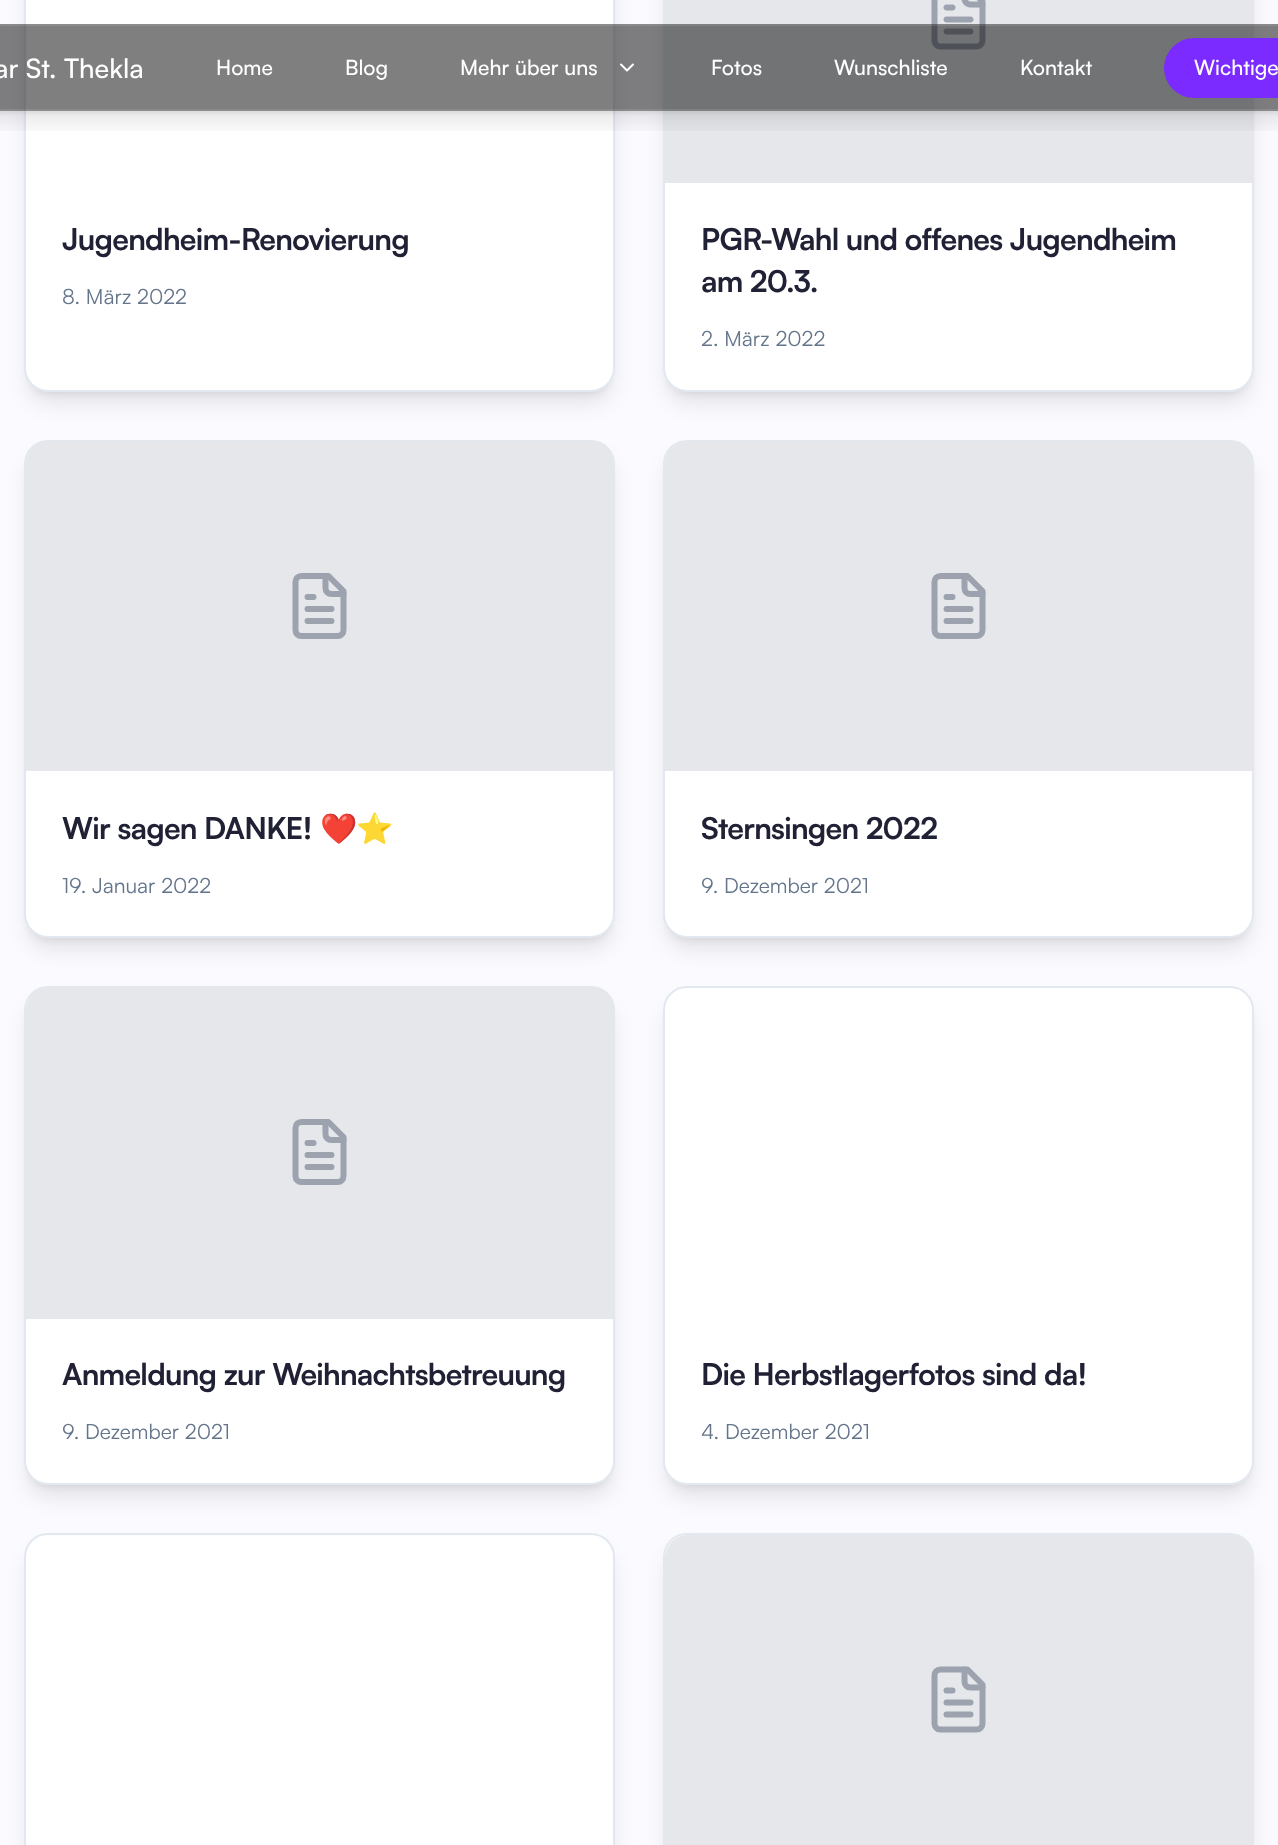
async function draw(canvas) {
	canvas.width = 1278;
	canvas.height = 1845;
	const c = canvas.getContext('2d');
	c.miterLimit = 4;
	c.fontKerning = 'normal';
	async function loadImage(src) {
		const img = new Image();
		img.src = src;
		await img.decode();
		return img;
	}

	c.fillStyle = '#fbfbff';
	c.fillRect(0, 0, 1278, 1845);
	c.fillStyle = '#0000001a';
	c.filter = 'blur(4.5px)';
	c.beginPath();
	c.roundRect(30, -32, 579, 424, 18);
	c.fill();
	c.filter = 'none';
	c.filter = 'blur(11px)';
	c.beginPath();
	c.roundRect(29, -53, 582, 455, 20);
	c.fill();
	c.filter = 'none';
	c.fillStyle = '#fff';
	c.beginPath();
	c.roundRect(25, -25, 589, 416, 23);
	c.fill();
	c.strokeStyle = '#e2e8f0';
	c.lineWidth = 2;
	c.stroke();
	c.fillStyle = '#0000001a';
	c.filter = 'blur(4.5px)';
	c.beginPath();
	c.roundRect(669, -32, 579, 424, 18);
	c.fill();
	c.filter = 'none';
	c.filter = 'blur(11px)';
	c.beginPath();
	c.roundRect(668, -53, 582, 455, 20);
	c.fill();
	c.filter = 'none';
	c.fillStyle = '#fff';
	c.beginPath();
	c.roundRect(664, -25, 589, 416, 23);
	c.fill();
	c.stroke();
	c.fillStyle = '#e5e7eb';
	c.fillRect(665, 0, 588, 183);
	c.drawImage(await loadImage('img1.png'), 931, 0, 55, 50);
	c.save();
	c.beginPath();
	c.rect(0, 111, 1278, 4);
	c.clip();
	c.fillStyle = '#0000001a';
	c.filter = 'blur(4.5px)';
	c.beginPath();
	c.roundRect(-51, 36, 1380, 75, 37.5);
	c.fill();
	c.filter = 'none';
	c.restore();
	c.save();
	c.beginPath();
	c.rect(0, 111, 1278, 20);
	c.clip();
	c.fillStyle = '#0000001a';
	c.filter = 'blur(11px)';
	c.beginPath();
	c.roundRect(-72, 44, 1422, 78, 39);
	c.fill();
	c.filter = 'none';
	c.restore();
	c.fillStyle = '#00000080';
	c.fillRect(0, 24, 1278, 87);
	c.strokeStyle = '#ffffff1a';
	c.strokeRect(-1, 25, 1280, 85);
	c.font = '500 27px Satoshi';
	c.fillStyle = '#fff';
	c.fillText('ar St. Thekla', -6, 78);
	c.font = '500 21px Satoshi';
	for (const [text, x, y] of [
		['Home', 216, 75],
		['Blog', 345, 75],
		['Mehr über uns', 460, 75],
	]) {
		c.fillText(text, x, y);
	}
	c.beginPath();
	c.moveTo(621, 64.5);
	c.lineTo(627, 70.5);
	c.lineTo(633, 64.5);
	c.strokeStyle = '#fff';
	c.lineCap = 'round';
	c.lineJoin = 'round';
	c.stroke();
	for (const [text, x, y] of [
		['Fotos', 711, 75],
		['Wunschliste', 834, 75],
		['Kontakt', 1020, 75],
	]) {
		c.fillText(text, x, y);
	}
	c.fillStyle = '#7b2bff';
	c.beginPath();
	c.roundRect(1164, 38, 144, 60, 30);
	c.fill();
	c.fillStyle = '#fff';
	c.fillText('Wichtige', 1194, 75);
	c.letterSpacing = '-0.75px';
	c.font = 'bold 30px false';
	c.fillStyle = '#212136';
	c.fillText('Jugendheim-Renovierung', 62, 250);
	c.letterSpacing = '0px';
	c.font = '21px false';
	c.fillStyle = '#64748b';
	c.fillText('8. März 2022', 62, 304);
	c.letterSpacing = '-0.75px';
	c.font = 'bold 30px false';
	c.fillStyle = '#212136';
	c.fillText('PGR-Wahl und offenes Jugendheim', 701, 250);
	c.fillText('am 20.3.', 701, 292);
	c.letterSpacing = '0px';
	c.font = '21px false';
	c.fillStyle = '#64748b';
	c.fillText('2. März 2022', 701, 346);
	c.fillStyle = '#0000001a';
	c.filter = 'blur(4.5px)';
	c.beginPath();
	c.roundRect(30, 452, 579, 486, 18);
	c.fill();
	c.filter = 'none';
	c.filter = 'blur(11px)';
	c.beginPath();
	c.roundRect(29, 459, 582, 489, 20);
	c.fill();
	c.filter = 'none';
	c.fillStyle = '#fff';
	c.beginPath();
	c.roundRect(25, 441, 589, 496, 23);
	c.fill();
	c.strokeStyle = '#e2e8f0';
	c.lineJoin = 'miter';
	c.stroke();
	c.fillStyle = '#e5e7eb';
	c.beginPath();
	c.roundRect(26, 441, 588, 330, [23, 23, 0, 0]);
	c.fill();
	c.beginPath();
	c.moveTo(328.5, 576);
	c.lineTo(301.5, 576);
	c.bezierCurveTo(298, 576, 295.5, 578.5, 295.5, 582);
	c.lineTo(295.5, 630);
	c.bezierCurveTo(295.5, 633.5, 298, 636, 301.5, 636);
	c.lineTo(337.5, 636);
	c.bezierCurveTo(341, 636, 343.5, 633.5, 343.5, 630);
	c.lineTo(343.5, 591);
	c.closePath();
	c.strokeStyle = '#9ca3af';
	c.lineWidth = 6;
	c.lineJoin = 'round';
	c.stroke();
	c.beginPath();
	c.moveTo(325.5, 576);
	c.lineTo(325.5, 588);
	c.bezierCurveTo(325.5, 591.5, 328, 594, 331.5, 594);
	c.lineTo(343.5, 594);
	c.moveTo(313.5, 597);
	c.lineTo(307.5, 597);
	c.moveTo(331.5, 609);
	c.lineTo(307.5, 609);
	c.moveTo(331.5, 621);
	c.lineTo(307.5, 621);
	c.stroke();
	c.letterSpacing = '-0.75px';
	c.font = 'bold 30px false';
	c.fillStyle = '#212136';
	c.fillText('Wir sagen DANKE!', 62, 839);
	c.font = 'bold 30px Noto Color Emoji';
	c.fillText('❤️⭐️', 320, 839);
	c.letterSpacing = '0px';
	c.font = '21px false';
	c.fillStyle = '#64748b';
	c.fillText('19. Januar 2022', 62, 893);
	c.fillStyle = '#0000001a';
	c.filter = 'blur(4.5px)';
	c.beginPath();
	c.roundRect(669, 452, 579, 486, 18);
	c.fill();
	c.filter = 'none';
	c.filter = 'blur(11px)';
	c.beginPath();
	c.roundRect(668, 459, 582, 489, 20);
	c.fill();
	c.filter = 'none';
	c.fillStyle = '#fff';
	c.beginPath();
	c.roundRect(664, 441, 589, 496, 23);
	c.fill();
	c.strokeStyle = '#e2e8f0';
	c.lineWidth = 2;
	c.lineJoin = 'miter';
	c.stroke();
	c.fillStyle = '#e5e7eb';
	c.beginPath();
	c.roundRect(665, 441, 588, 330, [23, 23, 0, 0]);
	c.fill();
	c.beginPath();
	c.moveTo(967.5, 576);
	c.lineTo(940.5, 576);
	c.bezierCurveTo(937, 576, 934.5, 578.5, 934.5, 582);
	c.lineTo(934.5, 630);
	c.bezierCurveTo(934.5, 633.5, 937, 636, 940.5, 636);
	c.lineTo(976.5, 636);
	c.bezierCurveTo(980, 636, 982.5, 633.5, 982.5, 630);
	c.lineTo(982.5, 591);
	c.closePath();
	c.strokeStyle = '#9ca3af';
	c.lineWidth = 6;
	c.lineJoin = 'round';
	c.stroke();
	c.beginPath();
	c.moveTo(964.5, 576);
	c.lineTo(964.5, 588);
	c.bezierCurveTo(964.5, 591.5, 967, 594, 970.5, 594);
	c.lineTo(982.5, 594);
	c.moveTo(952.5, 597);
	c.lineTo(946.5, 597);
	c.moveTo(970.5, 609);
	c.lineTo(946.5, 609);
	c.moveTo(970.5, 621);
	c.lineTo(946.5, 621);
	c.stroke();
	c.letterSpacing = '-0.75px';
	c.font = 'bold 30px false';
	c.fillStyle = '#212136';
	c.fillText('Sternsingen 2022', 701, 839);
	c.letterSpacing = '0px';
	c.font = '21px false';
	c.fillStyle = '#64748b';
	c.fillText('9. Dezember 2021', 701, 893);
	c.fillStyle = '#0000001a';
	c.filter = 'blur(4.5px)';
	c.beginPath();
	c.roundRect(30, 998, 579, 487, 18);
	c.fill();
	c.filter = 'none';
	c.filter = 'blur(11px)';
	c.beginPath();
	c.roundRect(29, 1005, 582, 491, 20);
	c.fill();
	c.filter = 'none';
	c.fillStyle = '#fff';
	c.beginPath();
	c.roundRect(25, 987, 589, 497, 23);
	c.fill();
	c.strokeStyle = '#e2e8f0';
	c.lineWidth = 2;
	c.lineJoin = 'miter';
	c.stroke();
	c.fillStyle = '#e5e7eb';
	c.beginPath();
	c.roundRect(26, 987, 588, 332, [23, 23, 0, 0]);
	c.fill();
	c.beginPath();
	c.moveTo(328.5, 1122);
	c.lineTo(301.5, 1122);
	c.bezierCurveTo(298, 1122, 295.5, 1124.5, 295.5, 1128);
	c.lineTo(295.5, 1176);
	c.bezierCurveTo(295.5, 1179.5, 298, 1182, 301.5, 1182);
	c.lineTo(337.5, 1182);
	c.bezierCurveTo(341, 1182, 343.5, 1179.5, 343.5, 1176);
	c.lineTo(343.5, 1137);
	c.closePath();
	c.strokeStyle = '#9ca3af';
	c.lineWidth = 6;
	c.lineJoin = 'round';
	c.stroke();
	c.beginPath();
	c.moveTo(325.5, 1122);
	c.lineTo(325.5, 1134);
	c.bezierCurveTo(325.5, 1137.5, 328, 1140, 331.5, 1140);
	c.lineTo(343.5, 1140);
	c.moveTo(313.5, 1143);
	c.lineTo(307.5, 1143);
	c.moveTo(331.5, 1155);
	c.lineTo(307.5, 1155);
	c.moveTo(331.5, 1167);
	c.lineTo(307.5, 1167);
	c.stroke();
	c.letterSpacing = '-0.75px';
	c.font = 'bold 30px false';
	c.fillStyle = '#212136';
	c.fillText('Anmeldung zur Weihnachtsbetreuung', 62, 1385);
	c.letterSpacing = '0px';
	c.font = '21px false';
	c.fillStyle = '#64748b';
	c.fillText('9. Dezember 2021', 62, 1439);
	c.fillStyle = '#0000001a';
	c.filter = 'blur(4.5px)';
	c.beginPath();
	c.roundRect(669, 998, 579, 487, 18);
	c.fill();
	c.filter = 'none';
	c.filter = 'blur(11px)';
	c.beginPath();
	c.roundRect(668, 1005, 582, 491, 20);
	c.fill();
	c.filter = 'none';
	c.fillStyle = '#fff';
	c.beginPath();
	c.roundRect(664, 987, 589, 497, 23);
	c.fill();
	c.strokeStyle = '#e2e8f0';
	c.lineWidth = 2;
	c.lineJoin = 'miter';
	c.stroke();
	c.letterSpacing = '-0.75px';
	c.font = 'bold 30px false';
	c.fillStyle = '#212136';
	c.fillText('Die Herbstlagerfotos sind da!', 701, 1385);
	c.letterSpacing = '0px';
	c.font = '21px false';
	c.fillStyle = '#64748b';
	c.fillText('4. Dezember 2021', 701, 1439);
	c.fillStyle = '#0000001a';
	c.filter = 'blur(11px)';
	c.beginPath();
	c.roundRect(29, 1553, 582, 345, 20);
	c.fill();
	c.filter = 'none';
	c.fillStyle = '#fff';
	c.beginPath();
	c.roundRect(25, 1534, 589, 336, 23);
	c.fill();
	c.stroke();
	c.fillStyle = '#0000001a';
	c.filter = 'blur(11px)';
	c.beginPath();
	c.roundRect(668, 1553, 582, 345, 20);
	c.fill();
	c.filter = 'none';
	c.fillStyle = '#fff';
	c.beginPath();
	c.roundRect(664, 1534, 589, 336, 23);
	c.fill();
	c.stroke();
	c.fillStyle = '#e5e7eb';
	c.beginPath();
	c.moveTo(688, 1535);
	c.lineTo(1230, 1535);
	c.bezierCurveTo(1242.5, 1535, 1253, 1545.5, 1253, 1558);
	c.lineTo(1253, 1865);
	c.lineTo(665, 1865);
	c.lineTo(665, 1558);
	c.bezierCurveTo(665, 1545.5, 675.5, 1535, 688, 1535);
	c.closePath();
	c.fill();
	c.beginPath();
	c.moveTo(967.5, 1669.5);
	c.lineTo(940.5, 1669.5);
	c.bezierCurveTo(937, 1669.5, 934.5, 1672, 934.5, 1675.5);
	c.lineTo(934.5, 1723.5);
	c.bezierCurveTo(934.5, 1727, 937, 1729.5, 940.5, 1729.5);
	c.lineTo(976.5, 1729.5);
	c.bezierCurveTo(980, 1729.5, 982.5, 1727, 982.5, 1723.5);
	c.lineTo(982.5, 1684.5);
	c.closePath();
	c.strokeStyle = '#9ca3af';
	c.lineWidth = 6;
	c.lineJoin = 'round';
	c.stroke();
	c.beginPath();
	c.moveTo(964.5, 1669.5);
	c.lineTo(964.5, 1681.5);
	c.bezierCurveTo(964.5, 1685, 967, 1687.5, 970.5, 1687.5);
	c.lineTo(982.5, 1687.5);
	c.moveTo(952.5, 1690.5);
	c.lineTo(946.5, 1690.5);
	c.moveTo(970.5, 1702.5);
	c.lineTo(946.5, 1702.5);
	c.moveTo(970.5, 1714.5);
	c.lineTo(946.5, 1714.5);
	c.stroke();
}

draw(document.querySelector('canvas'));
